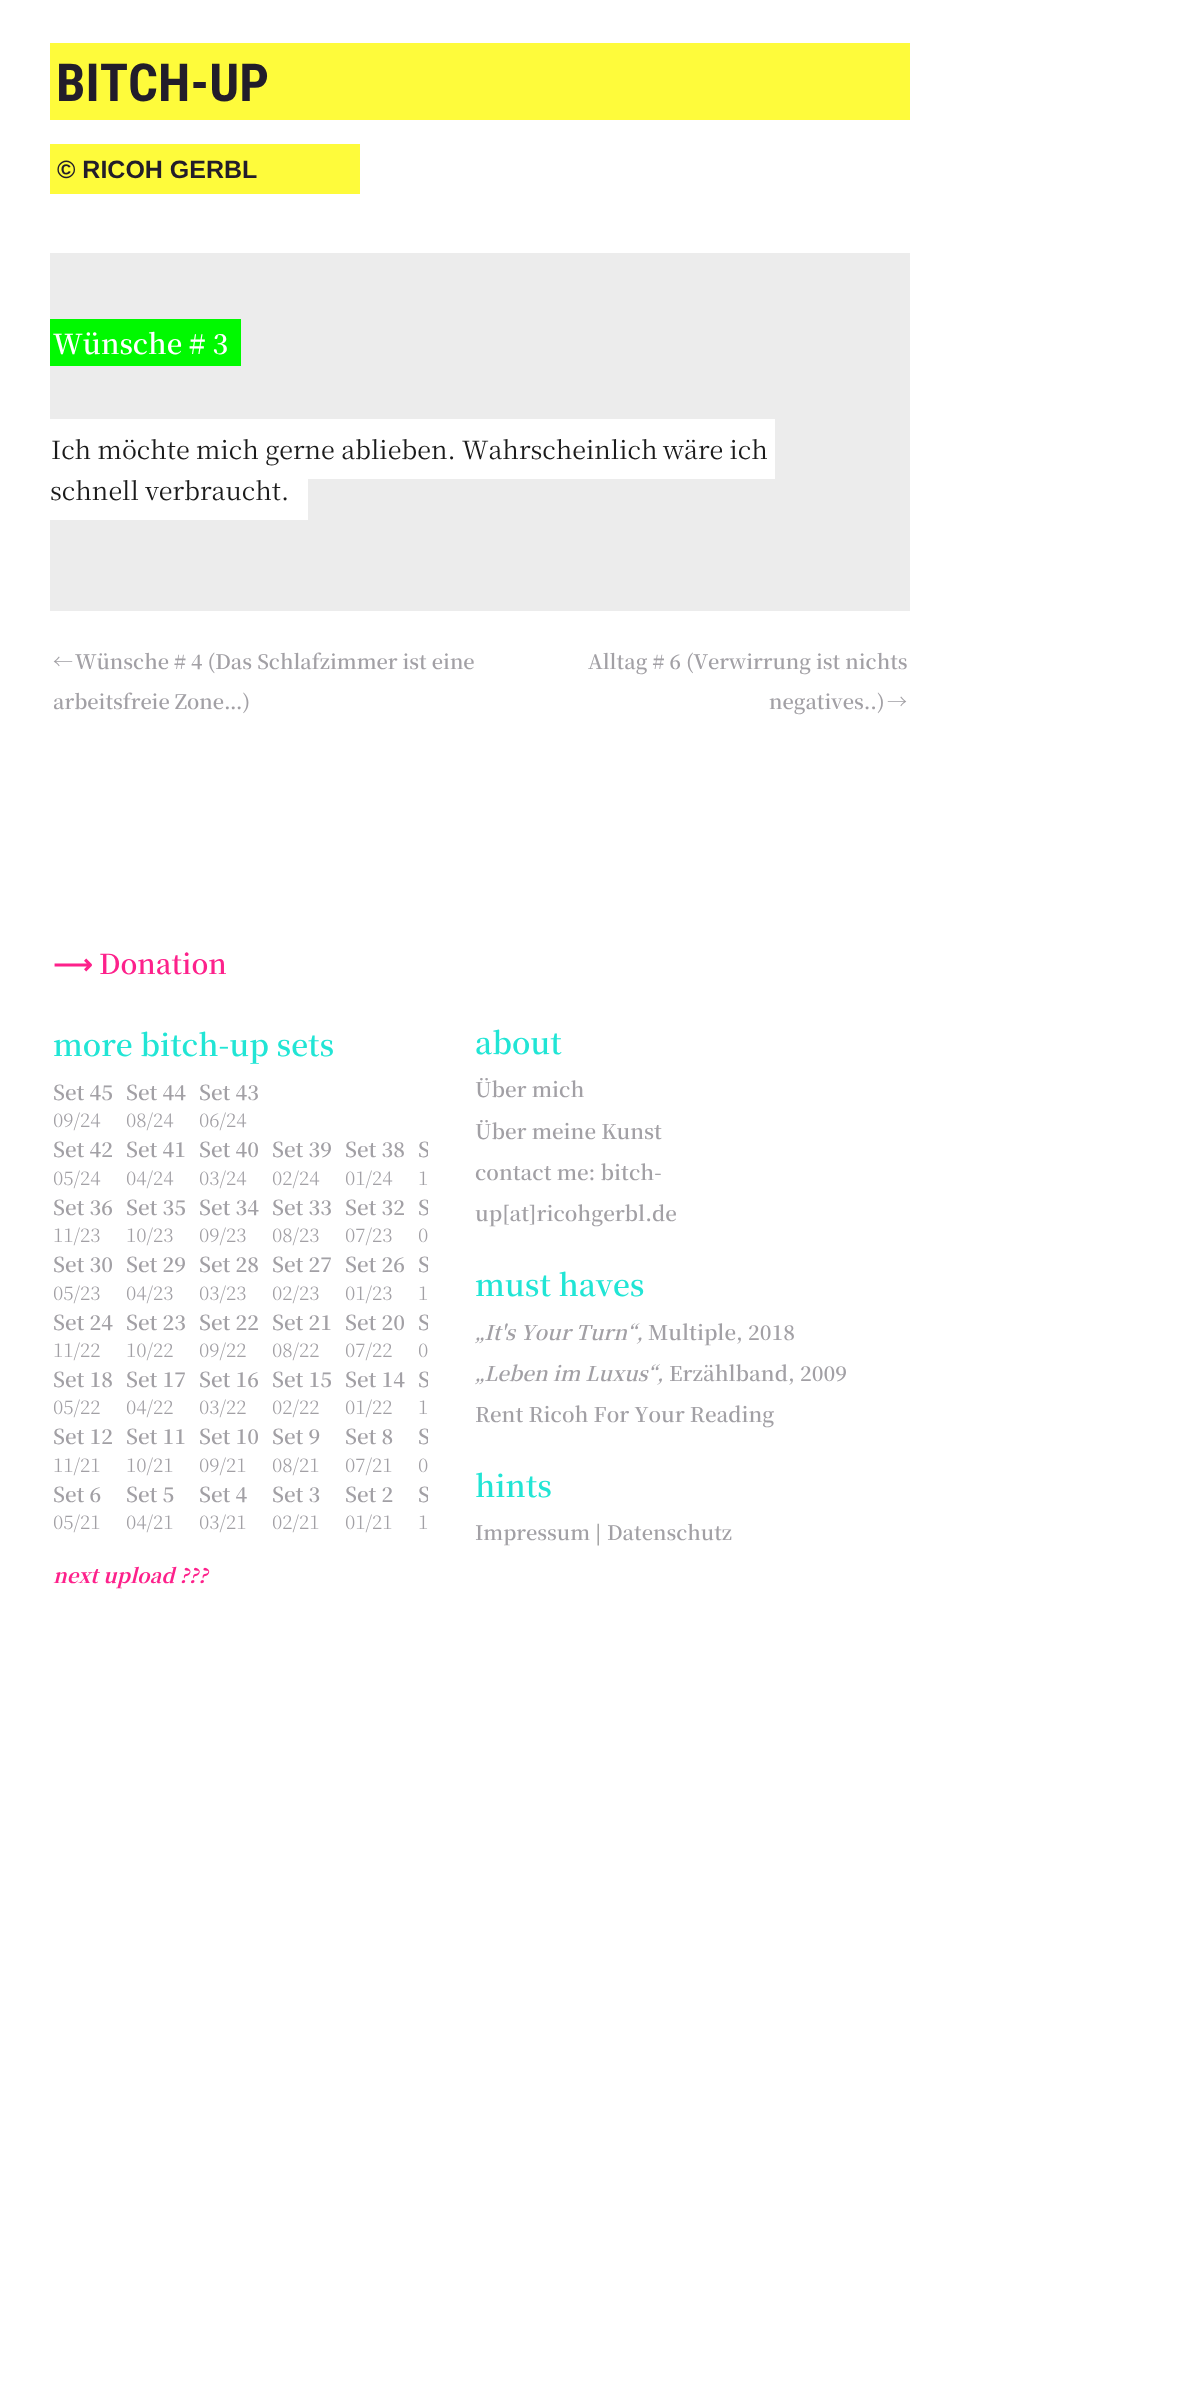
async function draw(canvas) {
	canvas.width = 1179;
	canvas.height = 2397;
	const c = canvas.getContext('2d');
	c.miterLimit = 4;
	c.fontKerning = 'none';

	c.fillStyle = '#fff';
	c.fillRect(0, 0, 1179, 2397);
	c.fillStyle = '#fefb3b';
	c.fillRect(50, 43, 860, 77);
	c.font = 'bold 52.5px Roboto Condensed';
	c.fillStyle = '#221d2a';
	c.fillText('BITCH-UP', 56, 101);
	c.fillStyle = '#fefb3b';
	c.fillRect(50, 144, 310, 50);
	c.font = 'bold 25px Liberation Sans';
	c.fillStyle = '#221d2a';
	c.fillText('© RICOH GERBL', 57, 178);
	c.fillStyle = '#ececec';
	c.fillRect(50, 253, 860, 358);
	c.fillStyle = '#00f900';
	c.fillRect(50, 319, 191, 47);
	c.font = '600 27.5px Noto Serif JP';
	c.fillStyle = '#fff';
	c.fillText('Wünsche # 3', 53, 354);
	c.fillRect(50, 419, 725, 60);
	c.font = '25px Noto Serif JP';
	c.fillStyle = '#1a1a1a';
	c.fillText('Ich möchte mich gerne ablieben. Wahrscheinlich', 51, 459);
	c.fillText('wäre ich', 663, 459);
	c.fillStyle = '#fff';
	c.fillRect(50, 479, 258, 41);
	c.fillStyle = '#1a1a1a';
	c.fillText('schnell verbraucht.', 50, 500);
	c.font = '600 20px Noto Serif JP';
	c.fillStyle = '#a2a0a5';
	for (const [text, x, y] of [
		['←', 53, 669],
		['Wünsche # 4 (Das Schlafzimmer ist eine', 75, 669],
		['arbeitsfreie Zone…)', 53, 709],
		['Alltag # 6 (Verwirrung ist nichts', 588, 669],
		['negatives..)', 769, 709],
		['→', 887, 709],
	]) {
		c.fillText(text, x, y);
	}
	c.font = 'bold 27.5px DejaVu Sans';
	c.fillStyle = '#fd218b';
	c.fillText('⟶', 53, 974);
	c.font = '600 27.5px Noto Serif JP';
	c.fillText('Donation', 99, 974);
	c.font = '600 30px Noto Serif JP';
	c.fillStyle = '#21e5d5';
	c.fillText('more bitch-up sets', 53, 1056);
	c.font = '600 20.5px Noto Serif JP';
	c.fillStyle = '#a2a0a5';
	for (const [text, x, y] of [
		['Set 45', 53, 1100],
		['Set 44', 126, 1100],
		['Set 43', 199, 1100],
	]) {
		c.fillText(text, x, y);
	}
	c.font = '300 19px Noto Serif JP';
	for (const [text, x, y] of [
		['09/24', 53, 1127],
		['08/24', 126, 1127],
		['06/24', 199, 1127],
	]) {
		c.fillText(text, x, y);
	}
	c.font = '600 20.5px Noto Serif JP';
	for (const [text, x, y] of [
		['Set 42', 53, 1157],
		['Set 41', 126, 1157],
		['Set 40', 199, 1157],
		['Set 39', 272, 1157],
		['Set 38', 345, 1157],
	]) {
		c.fillText(text, x, y);
	}
	c.save();
	c.beginPath();
	c.rect(53, 941, 375, 654);
	c.clip();
	c.fillText('S', 418, 1157);
	c.restore();
	c.font = '300 19px Noto Serif JP';
	for (const [text, x, y] of [
		['05/24', 53, 1185],
		['04/24', 126, 1185],
		['03/24', 199, 1185],
		['02/24', 272, 1185],
		['01/24', 345, 1185],
		['1', 418, 1185],
	]) {
		c.fillText(text, x, y);
	}
	c.font = '600 20.5px Noto Serif JP';
	for (const [text, x, y] of [
		['Set 36', 53, 1215],
		['Set 35', 126, 1215],
		['Set 34', 199, 1215],
		['Set 33', 272, 1215],
		['Set 32', 345, 1215],
	]) {
		c.fillText(text, x, y);
	}
	c.save();
	c.beginPath();
	c.rect(53, 941, 375, 654);
	c.clip();
	c.fillText('S', 418, 1215);
	c.restore();
	c.font = '300 19px Noto Serif JP';
	for (const [text, x, y] of [
		['11/23', 53, 1242],
		['10/23', 126, 1242],
		['09/23', 199, 1242],
		['08/23', 272, 1242],
		['07/23', 345, 1242],
		['0', 418, 1242],
	]) {
		c.fillText(text, x, y);
	}
	c.font = '600 20.5px Noto Serif JP';
	for (const [text, x, y] of [
		['Set 30', 53, 1272],
		['Set 29', 126, 1272],
		['Set 28', 199, 1272],
		['Set 27', 272, 1272],
		['Set 26', 345, 1272],
	]) {
		c.fillText(text, x, y);
	}
	c.save();
	c.beginPath();
	c.rect(53, 941, 375, 654);
	c.clip();
	c.fillText('S', 418, 1272);
	c.restore();
	c.font = '300 19px Noto Serif JP';
	for (const [text, x, y] of [
		['05/23', 53, 1300],
		['04/23', 126, 1300],
		['03/23', 199, 1300],
		['02/23', 272, 1300],
		['01/23', 345, 1300],
		['1', 418, 1300],
	]) {
		c.fillText(text, x, y);
	}
	c.font = '600 20.5px Noto Serif JP';
	for (const [text, x, y] of [
		['Set 24', 53, 1330],
		['Set 23', 126, 1330],
		['Set 22', 199, 1330],
		['Set 21', 272, 1330],
		['Set 20', 345, 1330],
	]) {
		c.fillText(text, x, y);
	}
	c.save();
	c.beginPath();
	c.rect(53, 941, 375, 654);
	c.clip();
	c.fillText('S', 418, 1330);
	c.restore();
	c.font = '300 19px Noto Serif JP';
	for (const [text, x, y] of [
		['11/22', 53, 1357],
		['10/22', 126, 1357],
		['09/22', 199, 1357],
		['08/22', 272, 1357],
		['07/22', 345, 1357],
		['0', 418, 1357],
	]) {
		c.fillText(text, x, y);
	}
	c.font = '600 20.5px Noto Serif JP';
	for (const [text, x, y] of [
		['Set 18', 53, 1387],
		['Set 17', 126, 1387],
		['Set 16', 199, 1387],
		['Set 15', 272, 1387],
		['Set 14', 345, 1387],
	]) {
		c.fillText(text, x, y);
	}
	c.save();
	c.beginPath();
	c.rect(53, 941, 375, 654);
	c.clip();
	c.fillText('S', 418, 1387);
	c.restore();
	c.font = '300 19px Noto Serif JP';
	for (const [text, x, y] of [
		['05/22', 53, 1414],
		['04/22', 126, 1414],
		['03/22', 199, 1414],
		['02/22', 272, 1414],
		['01/22', 345, 1414],
		['1', 418, 1414],
	]) {
		c.fillText(text, x, y);
	}
	c.font = '600 20.5px Noto Serif JP';
	for (const [text, x, y] of [
		['Set 12', 53, 1444],
		['Set 11', 126, 1444],
		['Set 10', 199, 1444],
		['Set 9', 272, 1444],
		['Set 8', 345, 1444],
	]) {
		c.fillText(text, x, y);
	}
	c.save();
	c.beginPath();
	c.rect(53, 941, 375, 654);
	c.clip();
	c.fillText('S', 418, 1444);
	c.restore();
	c.font = '300 19px Noto Serif JP';
	for (const [text, x, y] of [
		['11/21', 53, 1472],
		['10/21', 126, 1472],
		['09/21', 199, 1472],
		['08/21', 272, 1472],
		['07/21', 345, 1472],
		['0', 418, 1472],
	]) {
		c.fillText(text, x, y);
	}
	c.font = '600 20.5px Noto Serif JP';
	for (const [text, x, y] of [
		['Set 6', 53, 1502],
		['Set 5', 126, 1502],
		['Set 4', 199, 1502],
		['Set 3', 272, 1502],
		['Set 2', 345, 1502],
	]) {
		c.fillText(text, x, y);
	}
	c.save();
	c.beginPath();
	c.rect(53, 941, 375, 654);
	c.clip();
	c.fillText('S', 418, 1502);
	c.restore();
	c.font = '300 19px Noto Serif JP';
	for (const [text, x, y] of [
		['05/21', 53, 1529],
		['04/21', 126, 1529],
		['03/21', 199, 1529],
		['02/21', 272, 1529],
		['01/21', 345, 1529],
		['1', 418, 1529],
	]) {
		c.fillText(text, x, y);
	}
	c.font = 'italic bold 20px Noto Serif JP';
	c.fillStyle = '#fd218b';
	c.fillText('next upload ???', 53, 1583);
	c.font = '600 30px Noto Serif JP';
	c.fillStyle = '#21e5d5';
	c.fillText('about', 475, 1054);
	c.font = '600 20.5px Noto Serif JP';
	c.fillStyle = '#a2a0a5';
	for (const [text, x, y] of [
		['Über mich', 475, 1097],
		['Über meine Kunst', 475, 1139],
		['contact me: bitch-', 475, 1180],
		['up[at]ricohgerbl.de', 475, 1221],
	]) {
		c.fillText(text, x, y);
	}
	c.font = '600 30px Noto Serif JP';
	c.fillStyle = '#21e5d5';
	c.fillText('must haves', 475, 1296);
	c.font = 'italic 600 20.5px Noto Serif JP';
	c.fillStyle = '#a2a0a5';
	c.fillText('„It\'s Your Turn“,', 475, 1340);
	c.font = '600 20.5px Noto Serif JP';
	c.fillText('Multiple, 2018', 648, 1340);
	c.font = 'italic 600 20.5px Noto Serif JP';
	c.fillText('„Leben im Luxus“,', 475, 1381);
	c.font = '600 20.5px Noto Serif JP';
	c.fillText('Erzählband, 2009', 669, 1381);
	c.fillText('Rent Ricoh For Your Reading', 475, 1422);
	c.font = '600 30px Noto Serif JP';
	c.fillStyle = '#21e5d5';
	c.fillText('hints', 475, 1497);
	c.font = '600 20px Noto Serif JP';
	c.fillStyle = '#a2a0a5';
	c.fillText('Impressum', 475, 1540);
	c.font = '20px Noto Serif JP';
	c.fillStyle = '#777';
	c.fillText('|', 595, 1540);
	c.font = '600 20px Noto Serif JP';
	c.fillStyle = '#a2a0a5';
	c.fillText('Datenschutz', 607, 1540);
}

draw(document.querySelector('canvas'));
